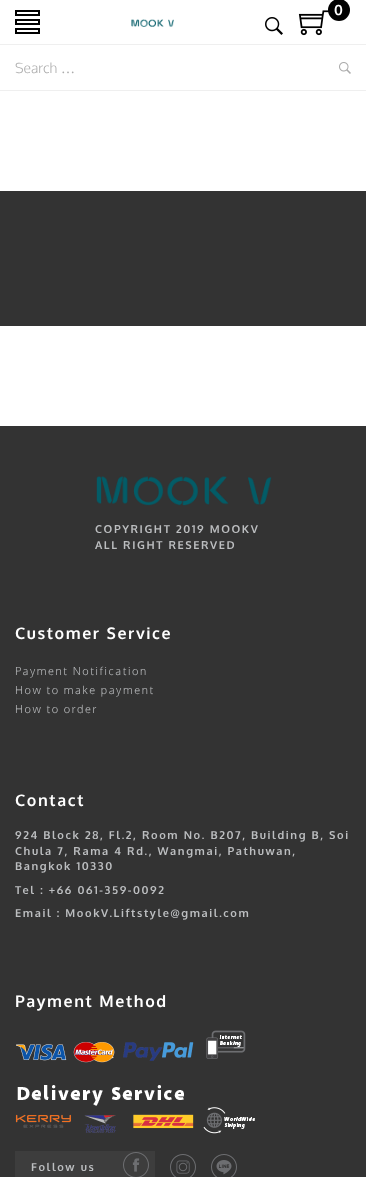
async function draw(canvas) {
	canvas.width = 366;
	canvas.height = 1177;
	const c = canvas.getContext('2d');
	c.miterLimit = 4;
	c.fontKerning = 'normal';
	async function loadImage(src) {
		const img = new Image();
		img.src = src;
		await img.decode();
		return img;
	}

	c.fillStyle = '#fff';
	c.fillRect(0, 0, 366, 1177);
	c.strokeStyle = '#000';
	c.lineWidth = 2;
	c.strokeRect(16, 20, 23, 4);
	c.strokeRect(16, 11, 23, 4);
	c.strokeRect(16, 29, 23, 4);
	c.drawImage(await loadImage('img1.png'), 131, 19, 43, 8);
	c.drawImage(await loadImage('img2.png'), 298, 10, 31, 26);
	c.fillStyle = '#000';
	c.beginPath();
	c.arc(339, 10, 11, 0, 2 * Math.PI);
	c.fill();
	c.letterSpacing = '1.6px';
	c.font = 'bold 14px Oxygen';
	c.fillStyle = '#fff';
	c.fillText('0', 334, 15);
	c.drawImage(await loadImage('img3.png'), 265, 17, 18, 18);
	c.fillStyle = '#efefef';
	c.fillRect(0, 44, 366, 1);
	c.fillRect(0, 90, 366, 1);
	c.letterSpacing = '0px';
	c.font = '300 14px Oxygen';
	c.fillStyle = '#ababab';
	c.fillText('Search', 15, 73);
	c.font = '14px Liberation Serif';
	c.fillText('…', 61, 73);
	c.drawImage(await loadImage('img4.png'), 339, 62, 12, 12);
	c.fillStyle = '#333';
	c.fillRect(0, 191, 366, 135);
	c.fillRect(0, 426, 366, 751);
	c.drawImage(await loadImage('img5.png'), 96, 476, 176, 30);
	c.letterSpacing = '1.6px';
	c.font = 'bold 11px Oxygen';
	c.fillStyle = '#bcbec0';
	c.fillText('COPYRIGHT 2019 MOOKV', 95, 533);
	c.fillText('ALL RIGHT RESERVED', 95, 549);
	c.font = 'bold 16px Oxygen';
	c.fillStyle = '#fff';
	c.fillText('Customer Service', 15, 639);
	c.font = '300 11px Oxygen';
	c.fillStyle = '#bcbec0';
	for (const [text, x, y] of [
		['Payment Notification', 15, 675],
		['How to make payment', 15, 694],
		['How to order', 15, 713],
	]) {
		c.fillText(text, x, y);
	}
	c.font = 'bold 16px Oxygen';
	c.fillStyle = '#fff';
	c.fillText('Contact', 15, 806);
	c.font = 'bold 11px Oxygen';
	c.fillStyle = '#bcbec0';
	for (const [text, x, y] of [
		['924 Block 28, Fl.2, Room No. B207, Building B, Soi', 15, 839],
		['Chula 7, Rama 4 Rd., Wangmai, Pathuwan,', 15, 855],
		['Bangkok 10330', 15, 870],
		['Tel : +66 061-359-0092', 15, 894],
		['Email : MookV.Liftstyle@gmail.com', 15, 917],
	]) {
		c.fillText(text, x, y);
	}
	c.font = 'bold 16px Oxygen';
	c.fillStyle = '#fff';
	c.fillText('Payment Method', 15, 1007);
	c.drawImage(await loadImage('img6.png'), 15, 1030, 240, 104);
	c.fillStyle = '#3d3d3d';
	c.fillRect(15, 1151, 140, 26);
	c.font = 'bold 11px Oxygen';
	c.fillStyle = '#bcbec0';
	c.fillText('Follow us', 31, 1171);
	c.drawImage(await loadImage('img7.png'), 123, 1152, 26, 25);
	c.drawImage(await loadImage('img8.png'), 170, 1154, 26, 23);
	c.drawImage(await loadImage('img9.png'), 211, 1154, 26, 23);
}

draw(document.querySelector('canvas'));
